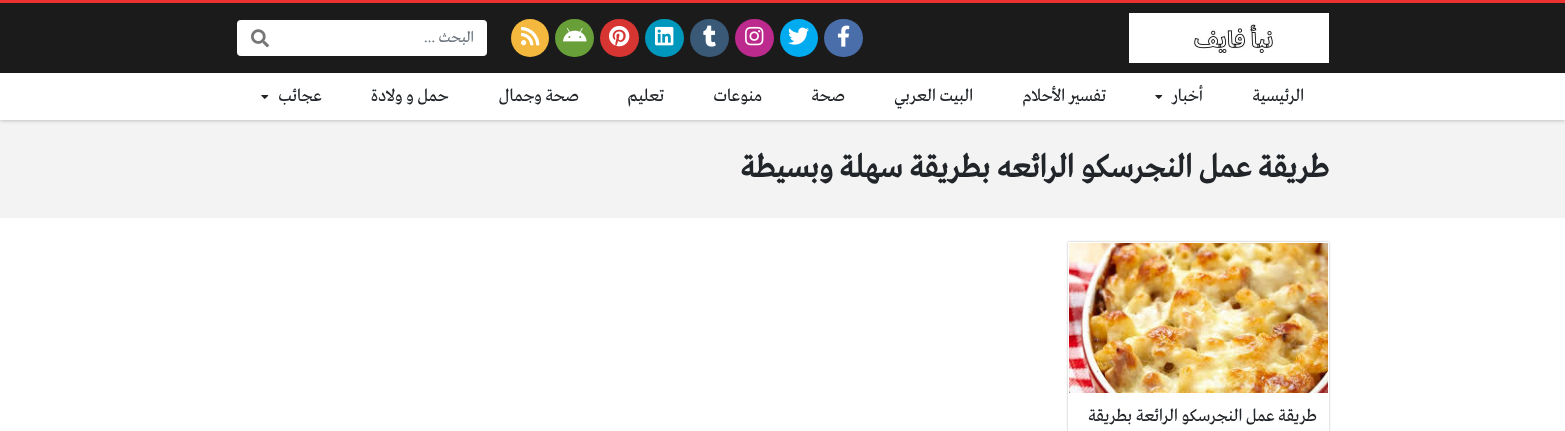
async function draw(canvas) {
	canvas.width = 1565;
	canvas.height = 431;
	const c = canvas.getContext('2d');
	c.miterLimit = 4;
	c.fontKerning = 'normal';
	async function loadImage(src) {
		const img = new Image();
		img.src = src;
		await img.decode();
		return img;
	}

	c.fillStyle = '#f3f3f3';
	c.fillRect(0, 0, 1565, 431);
	c.fillStyle = '#0000004d';
	c.filter = 'blur(2px)';
	c.beginPath();
	c.rect(0, 0, 1565, 120);
	c.fill();
	c.filter = 'none';
	c.fillStyle = '#ed3131';
	c.fillRect(0, 0, 1565, 3);
	c.fillStyle = '#1b1b1b';
	c.fillRect(0, 3, 1565, 70);
	c.drawImage(await loadImage('img1.png'), 1129, 13, 200, 50);
	c.fillStyle = '#4a6ea9';
	c.beginPath();
	c.roundRect(824, 19, 39, 38, 19);
	c.fill();
	c.drawImage(await loadImage('img2.png'), 837, 25, 13, 22);
	c.fillStyle = '#00abf0';
	c.beginPath();
	c.arc(799, 38, 19, 0, 2 * Math.PI);
	c.fill();
	c.drawImage(await loadImage('img3.png'), 788, 27, 21, 18);
	c.fillStyle = '#bc2a8d';
	c.beginPath();
	c.roundRect(735, 19, 39, 38, 19);
	c.fill();
	c.drawImage(await loadImage('img4.png'), 745, 26, 19, 20);
	c.fillStyle = '#395976';
	c.beginPath();
	c.roundRect(690, 19, 39, 38, 19);
	c.fill();
	c.drawImage(await loadImage('img5.png'), 703, 25, 13, 22);
	c.fillStyle = '#0097bd';
	c.beginPath();
	c.roundRect(645, 19, 39, 38, 19);
	c.fill();
	c.drawImage(await loadImage('img6.png'), 655, 26, 19, 20);
	c.fillStyle = '#d73532';
	c.beginPath();
	c.roundRect(600, 19, 39, 38, 19);
	c.fill();
	c.drawImage(await loadImage('img7.png'), 609, 26, 21, 21);
	c.fillStyle = '#689f38';
	c.beginPath();
	c.roundRect(555, 19, 39, 38, 19);
	c.fill();
	c.drawImage(await loadImage('img8.png'), 563, 28, 24, 14);
	c.fillStyle = '#f4b83f';
	c.beginPath();
	c.arc(530, 38, 19, 0, 2 * Math.PI);
	c.fill();
	c.drawImage(await loadImage('img9.png'), 521, 26, 19, 20);
	c.fillStyle = '#fff';
	c.beginPath();
	c.roundRect(237, 20, 250, 36, 4);
	c.fill();
	c.direction = 'rtl';
	c.font = '16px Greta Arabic';
	c.fillStyle = '#6c757d';
	c.fillText('البحث ...', 474, 42);
	c.drawImage(await loadImage('img10.png'), 251, 29, 18, 19);
	c.fillStyle = '#fff';
	c.fillRect(0, 73, 1565, 47);
	c.font = '18px Greta Arabic';
	c.fillStyle = '#212529';
	c.fillText('الرئيسية', 1304, 101);
	c.fillText('أخبار', 1203, 101);
	c.drawImage(await loadImage('img11.png'), 1155, 95, 8, 4);
	for (const [text, x, y] of [
		['تفسير الأحلام', 1106, 101],
		['البيت العربي', 973, 101],
		['صحة', 845, 101],
		['منوعات', 762, 101],
		['تعليم', 664, 101],
		['صحة وجمال', 579, 101],
		['حمل و ولادة', 449, 101],
		['عجائب', 322, 101],
	]) {
		c.fillText(text, x, y);
	}
	c.drawImage(await loadImage('img11.png'), 261, 95, 8, 4);
	c.font = 'bold 33px Greta Arabic';
	c.fillText('طريقة عمل النجرسكو الرائعه بطريقة سهلة وبسيطة', 1329, 177);
	c.fillStyle = '#fff';
	c.fillRect(0, 218, 1565, 213);
	c.save();
	c.beginPath();
	c.moveTo(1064, 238);
	c.lineTo(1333, 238);
	c.lineTo(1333, 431);
	c.lineTo(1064, 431);
	c.closePath();
	c.moveTo(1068, 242);
	c.lineTo(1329, 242);
	c.lineTo(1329, 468);
	c.lineTo(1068, 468);
	c.closePath();
	c.clip('evenodd');
	c.fillStyle = '#0000004d';
	c.filter = 'blur(1px)';
	c.beginPath();
	c.rect(1068, 242, 261, 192);
	c.fill();
	c.filter = 'none';
	c.restore();
	c.drawImage(await loadImage('img12.png'), 1069, 243, 259, 150);
	c.font = '18px Greta Arabic';
	c.fillStyle = '#212529';
	c.fillText('طريقة عمل النجرسكو الرائعة بطريقة', 1317, 421);
}

draw(document.querySelector('canvas'));
